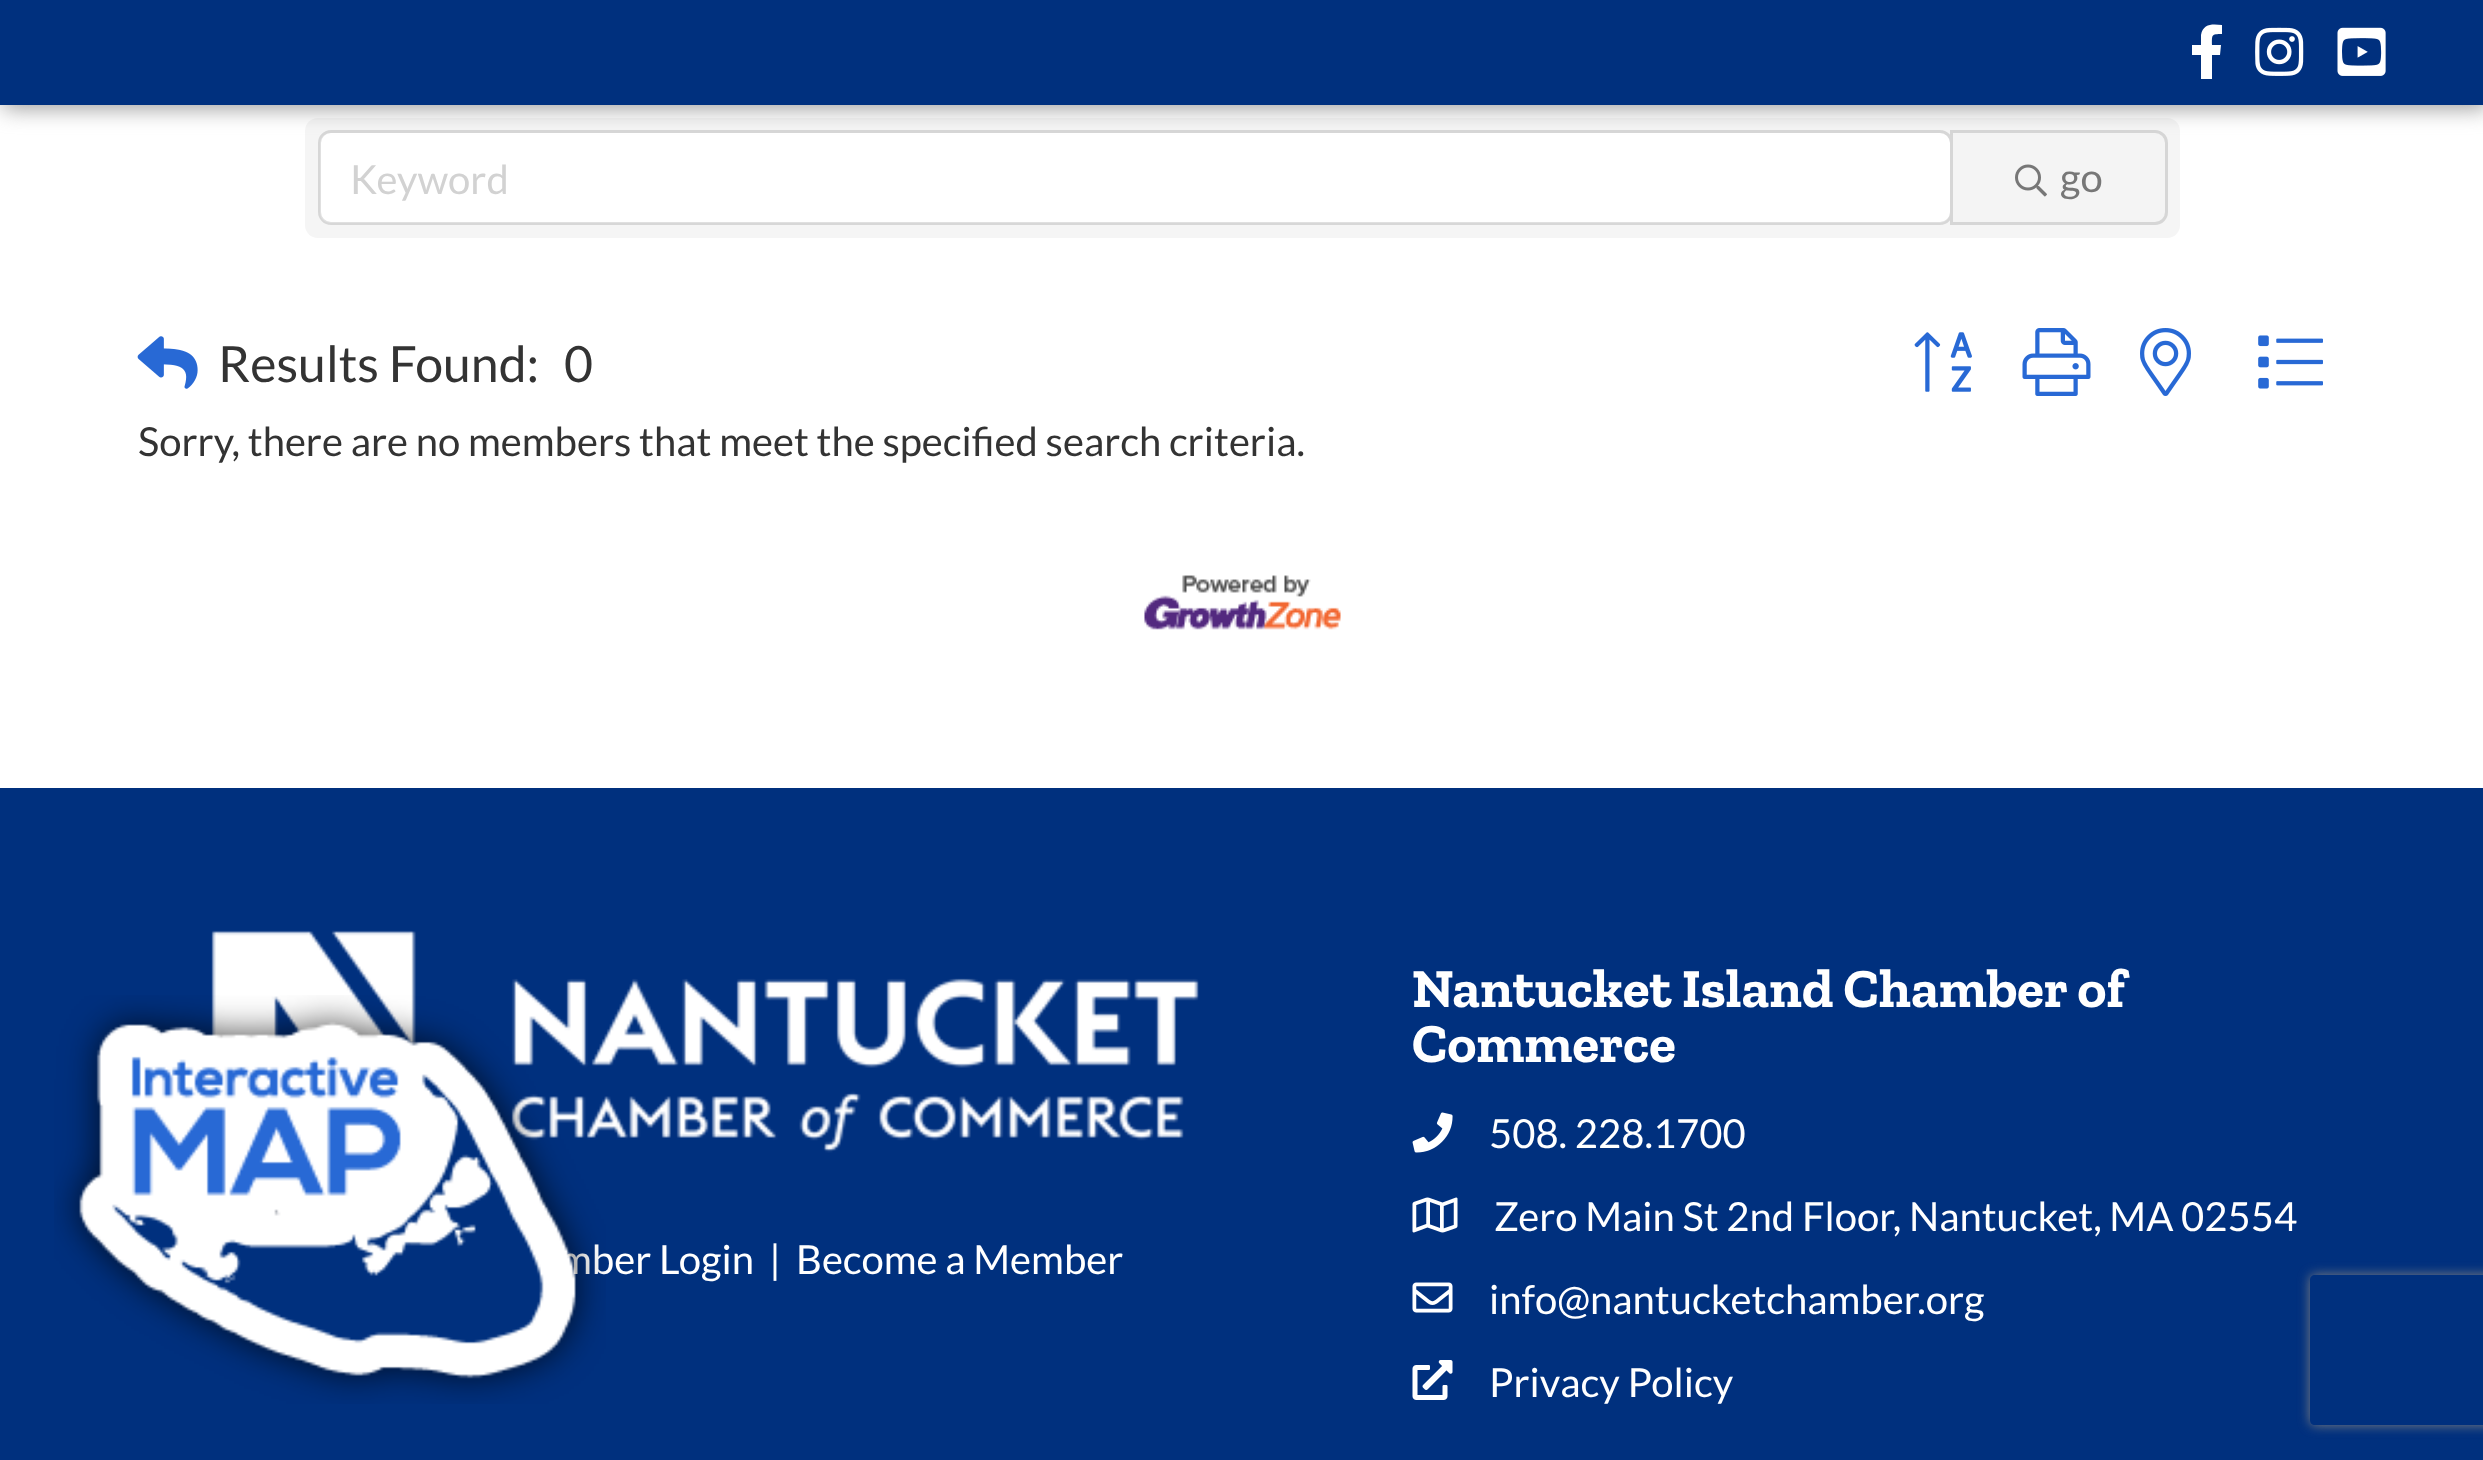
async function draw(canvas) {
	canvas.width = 2483;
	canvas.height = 1460;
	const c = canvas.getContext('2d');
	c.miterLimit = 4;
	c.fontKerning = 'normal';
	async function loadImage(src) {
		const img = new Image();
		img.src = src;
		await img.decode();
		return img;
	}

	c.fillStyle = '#fff';
	c.fillRect(0, 0, 2483, 1460);
	c.fillStyle = '#f5f5f5';
	c.beginPath();
	c.roundRect(305, 118, 1875, 120, 13);
	c.fill();
	c.fillStyle = '#fff';
	c.beginPath();
	c.roundRect(320, 133, 1630, 90, 10);
	c.fill();
	c.beginPath();
	c.roundRect(319.5, 131.5, 1632, 92, 11.5);
	c.strokeStyle = '#0000001f';
	c.lineWidth = 3;
	c.stroke();
	c.fillStyle = '#f4f4f4';
	c.beginPath();
	c.roundRect(1951.5, 131.5, 215, 92, [0, 11.5, 11.5, 0]);
	c.fill();
	c.strokeStyle = '#d6d6d6';
	c.stroke();
	c.fillStyle = '#999';
	c.filter = 'blur(11px)';
	c.beginPath();
	c.rect(3, 3, 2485, 105);
	c.fill();
	c.filter = 'none';
	c.fillStyle = '#00307e';
	c.fillRect(0, 0, 2483, 105);
	c.fillStyle = '#fff';
	c.beginPath();
	c.moveTo(2220, 55);
	c.lineTo(2212, 55);
	c.lineTo(2212, 79);
	c.lineTo(2201, 79);
	c.lineTo(2201, 55);
	c.lineTo(2192, 55);
	c.lineTo(2192, 45);
	c.lineTo(2201, 45);
	c.lineTo(2201, 35);
	c.bezierCurveTo(2203, 23, 2213, 24, 2222, 25);
	c.lineTo(2222, 34);
	c.bezierCurveTo(2211, 34, 2212, 35, 2212, 45);
	c.lineTo(2221, 45);
	c.closePath();
	c.fill();
	c.drawImage(await loadImage('img1.png'), 2255, 27, 49, 49);
	c.drawImage(await loadImage('img2.png'), 2337, 27, 49, 49);
	c.font = '40px Lato';
	c.fillStyle = '#d2d2d2';
	c.fillText('Keyword', 350, 194);
	c.drawImage(await loadImage('img3.png'), 2015, 164, 32, 33);
	c.fillStyle = '#777';
	c.fillText('go', 2060, 192);
	c.drawImage(await loadImage('img4.png'), 137, 336, 61, 53);
	c.font = '50px Lato';
	c.fillStyle = '#333';
	c.fillText('Results Found:', 218, 382);
	c.fillText('0', 564, 382);
	c.drawImage(await loadImage('img5.png'), 1914, 332, 58, 60);
	c.drawImage(await loadImage('img6.png'), 2022, 328, 69, 68);
	c.drawImage(await loadImage('img7.png'), 2140, 328, 51, 68);
	c.drawImage(await loadImage('img8.png'), 2258, 335, 65, 54);
	c.font = '40px Lato';
	c.fillText('Sorry, there are no members that meet the specified search criteria.', 138, 456);
	c.drawImage(await loadImage('img9.png'), 1144, 575, 197, 55);
	c.fillStyle = '#00307e';
	c.fillRect(0, 788, 2483, 672);
	c.drawImage(await loadImage('img10.png'), 211, 930, 988, 223);
	c.fillStyle = '#fff';
	for (const [text, x, y] of [
		['mber Login', 559, 1274],
		['|', 769, 1274],
		['Become a Member', 796, 1274],
	]) {
		c.fillText(text, x, y);
	}
	c.font = 'bold 55px Zilla Slab';
	c.fillText('Nantucket Island Chamber of', 1412, 1007);
	c.fillText('Commerce', 1412, 1062);
	c.drawImage(await loadImage('img11.png'), 1412, 1112, 41, 41);
	c.font = '40px Lato';
	c.fillText('508. 228.1700', 1489, 1148);
	c.drawImage(await loadImage('img12.png'), 1412, 1197, 46, 36);
	c.fillText('Zero Main St 2nd Floor, Nantucket, MA 02554', 1494, 1231);
	c.drawImage(await loadImage('img13.png'), 1412, 1282, 41, 31);
	c.fillText('info@nantucketchamber.org', 1489, 1314);
	c.drawImage(await loadImage('img14.png'), 1412, 1360, 41, 40);
	c.fillText('Privacy Policy', 1489, 1397);
	c.drawImage(await loadImage('img15.png'), 54, 995, 552, 409);
	c.save();
	c.beginPath();
	c.moveTo(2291, 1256);
	c.lineTo(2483, 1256);
	c.lineTo(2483, 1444);
	c.lineTo(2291, 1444);
	c.closePath();
	c.moveTo(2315, 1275);
	c.lineTo(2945, 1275);
	c.bezierCurveTo(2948, 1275, 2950, 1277, 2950, 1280);
	c.lineTo(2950, 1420);
	c.bezierCurveTo(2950, 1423, 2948, 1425, 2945, 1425);
	c.lineTo(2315, 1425);
	c.bezierCurveTo(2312, 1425, 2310, 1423, 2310, 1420);
	c.lineTo(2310, 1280);
	c.bezierCurveTo(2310, 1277, 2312, 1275, 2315, 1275);
	c.closePath();
	c.clip('evenodd');
	c.fillStyle = '#808080';
	c.filter = 'blur(6px)';
	c.beginPath();
	c.roundRect(2310, 1275, 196, 150, 5);
	c.fill();
	c.filter = 'none';
	c.restore();
}

draw(document.querySelector('canvas'));
